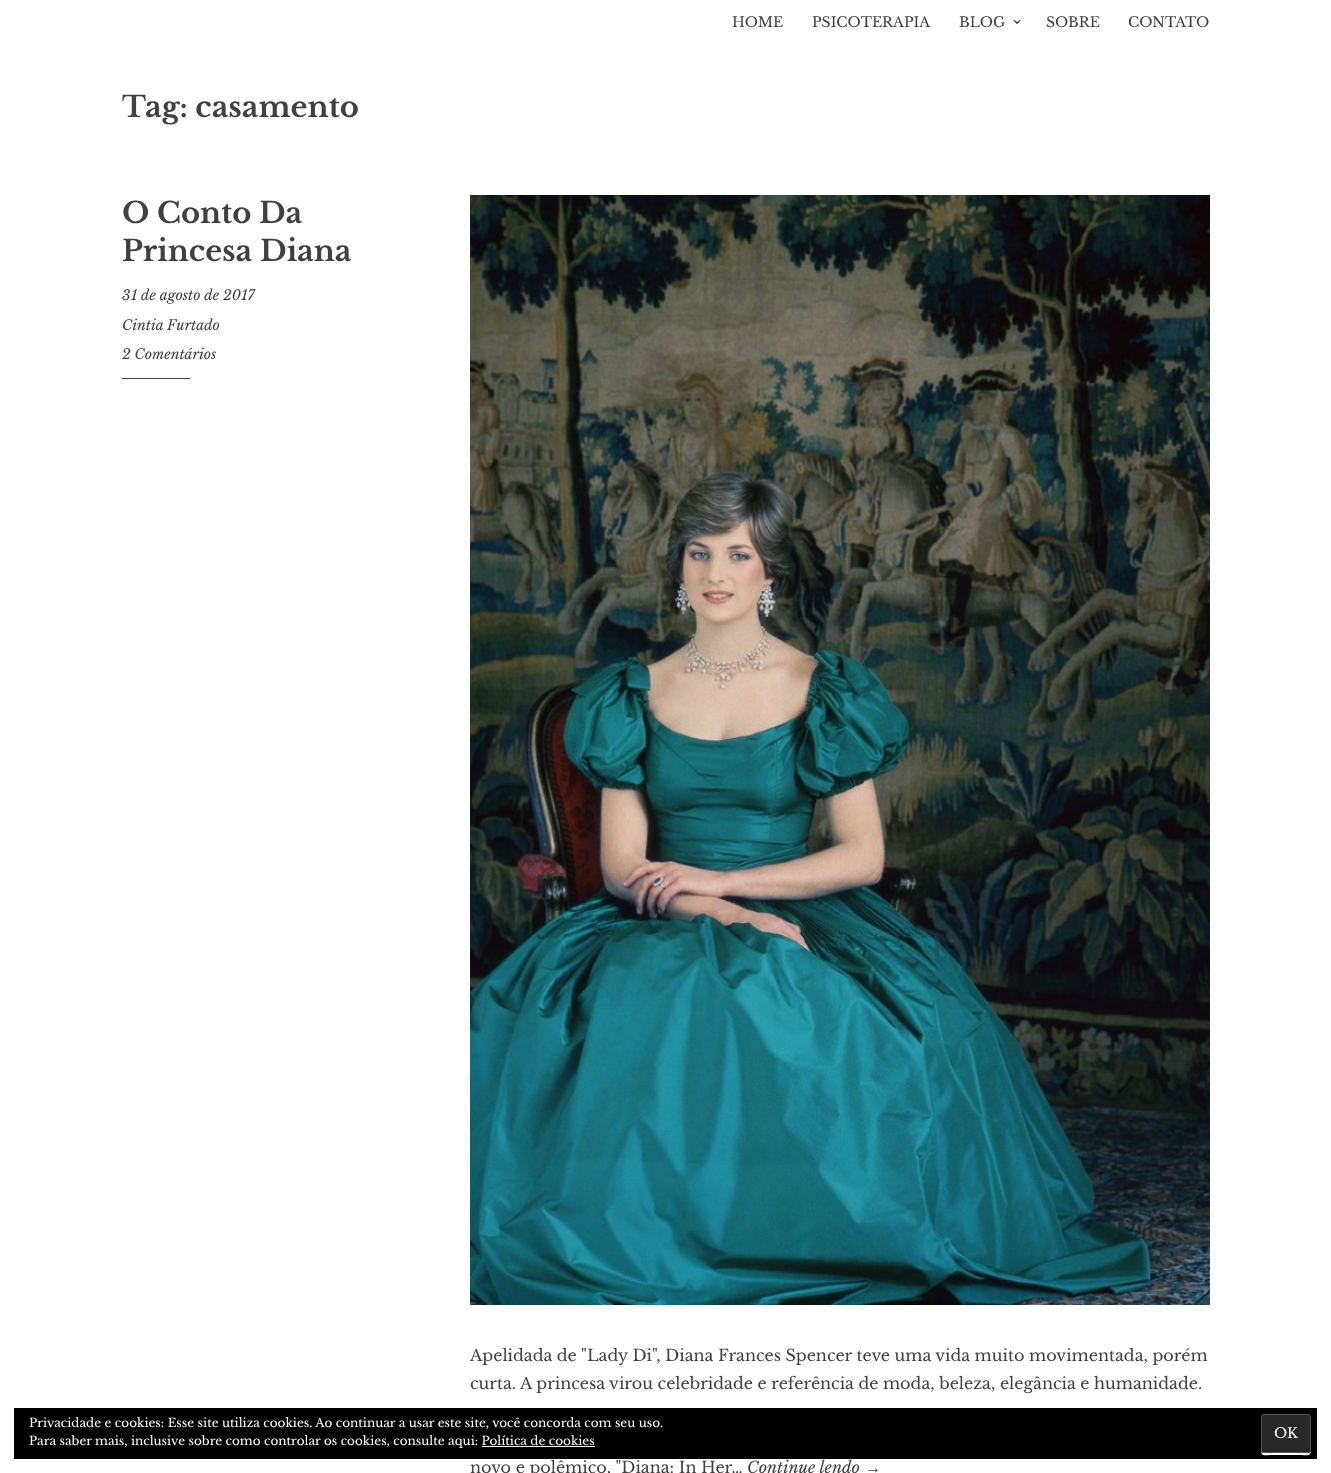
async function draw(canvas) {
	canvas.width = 1331;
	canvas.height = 1473;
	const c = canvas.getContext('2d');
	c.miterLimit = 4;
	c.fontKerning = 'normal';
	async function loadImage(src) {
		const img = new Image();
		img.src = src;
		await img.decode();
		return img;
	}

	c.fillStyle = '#fff';
	c.fillRect(0, 0, 1331, 1473);
	c.font = '14px Libre Baskerville';
	c.fillStyle = '#404040';
	for (const [text, x, y] of [
		['HOME', 732, 27],
		['PSICOTERAPIA', 812, 27],
		['BLOG', 959, 27],
	]) {
		c.fillText(text, x, y);
	}
	c.font = '23px Libre Baskerville';
	c.save();
	c.translate(1011, 18);
	c.rotate(90 * Math.PI / 180);
	c.fillText('›', 0, 0);
	c.restore();
	c.font = '14px Libre Baskerville';
	c.fillText('SOBRE', 1046, 27);
	c.fillText('CONTATO', 1128, 27);
	c.font = 'bold 29px Libre Baskerville';
	for (const [text, x, y] of [
		['Tag: casamento', 122, 117],
		['O Conto Da', 122, 223],
		['Princesa Diana', 122, 261],
	]) {
		c.fillText(text, x, y);
	}
	c.font = 'italic 14px Libre Baskerville';
	for (const [text, x, y] of [
		['31 de agosto de 2017', 122, 300],
		['Cintia Furtado', 122, 330],
		['2 Comentários', 122, 359],
	]) {
		c.fillText(text, x, y);
	}
	c.fillRect(122, 378, 68, 1);
	c.drawImage(await loadImage('img1.png'), 470, 195, 740, 1110);
	c.font = '16px Libre Baskerville';
	for (const [text, x, y] of [
		['Apelidada de "Lady Di", Diana Frances Spencer teve uma vida muito movimentada, porém', 470, 1361],
		['curta. A princesa virou celebridade e referência de moda, beleza, elegância e humanidade.', 470, 1389],
		['novo e polêmico, "Diana: In Her…', 470, 1473],
	]) {
		c.fillText(text, x, y);
	}
	c.font = 'italic 16px Libre Baskerville';
	c.fillText('Continue lendo', 747, 1473);
	c.font = 'italic 16px Liberation Serif';
	c.fillText('→', 865, 1473);
	c.fillStyle = '#000';
	c.fillRect(14, 1408, 1303, 51);
	c.font = '12px Libre Baskerville';
	c.fillStyle = '#fff';
	c.fillText('Privacidade e cookies: Esse site utiliza cookies. Ao continuar a usar este site, você concorda com seu uso.', 29, 1427);
	c.beginPath();
	c.moveTo(1261, 1450);
	c.bezierCurveTo(1261, 1457, 1265, 1455, 1271, 1455);
	c.lineTo(1301, 1455);
	c.bezierCurveTo(1307, 1455, 1311, 1457, 1311, 1450);
	c.bezierCurveTo(1311, 1452, 1310, 1453, 1308, 1453);
	c.lineTo(1264, 1453);
	c.bezierCurveTo(1262, 1453, 1261, 1452, 1261, 1450);
	c.closePath();
	c.fill();
	c.fillStyle = '#282828';
	c.beginPath();
	c.roundRect(1261.5, 1414.5, 49, 38, 2.5);
	c.fill();
	c.strokeStyle = '#535353';
	c.stroke();
	c.font = '14px Libre Baskerville';
	c.fillStyle = '#fff';
	c.fillText('OK', 1274, 1438);
	c.font = '12px Libre Baskerville';
	c.fillText('Para saber mais, inclusive sobre como controlar os cookies, consulte aqui: Política de cookies', 29, 1445);
	c.fillRect(482, 1446, 113, 1);
}

draw(document.querySelector('canvas'));
